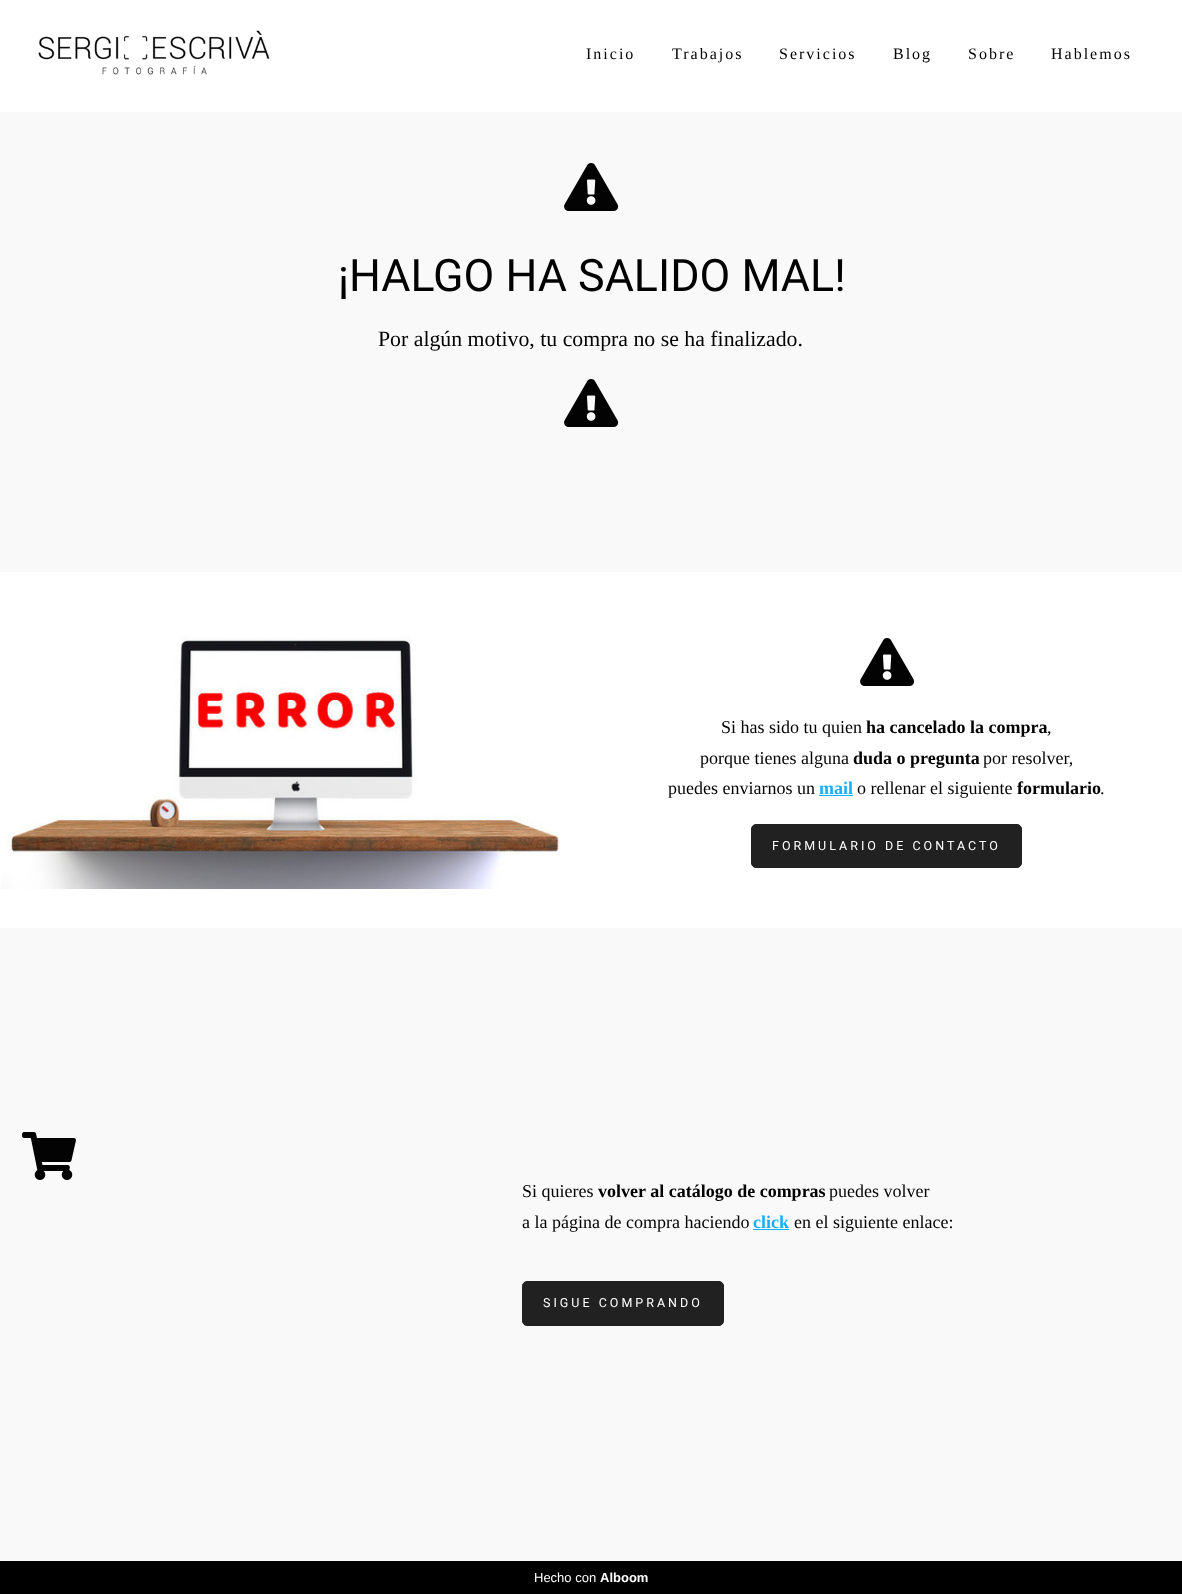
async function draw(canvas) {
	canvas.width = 1182;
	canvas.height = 1594;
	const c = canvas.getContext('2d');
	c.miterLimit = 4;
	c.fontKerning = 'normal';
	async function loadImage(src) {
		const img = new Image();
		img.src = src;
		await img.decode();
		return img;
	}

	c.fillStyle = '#fff';
	c.fillRect(0, 0, 1182, 1594);
	c.drawImage(await loadImage('img1.png'), 38, 30, 232, 45);
	c.letterSpacing = '2px';
	c.font = '16px Liberation Serif';
	c.fillStyle = '#000';
	for (const [text, x, y] of [
		['Inicio', 586, 59],
		['Trabajos', 672, 59],
		['Servicios', 779, 59],
		['Blog', 893, 59],
		['Sobre', 968, 59],
		['Hablemos', 1051, 59],
	]) {
		c.fillText(text, x, y);
	}
	c.fillStyle = '#f9f9f9';
	c.fillRect(0, 112, 1182, 1449);
	c.drawImage(await loadImage('img2.png'), 564, 163, 55, 48);
	c.letterSpacing = '0px';
	c.font = '44.75px Roboto';
	c.fillStyle = '#000';
	c.fillText('¡HALGO HA SALIDO MAL!', 338, 291);
	c.font = '21.8px Liberation Serif';
	c.fillText('Por algún motivo, tu compra no se ha finalizado.', 378, 346);
	c.drawImage(await loadImage('img2.png'), 564, 379, 55, 48);
	c.fillStyle = '#fff';
	c.fillRect(0, 572, 1182, 356);
	c.drawImage(await loadImage('img3.png'), 1, 635, 559, 254);
	c.drawImage(await loadImage('img4.png'), 860, 638, 55, 48);
	c.font = '18px Liberation Serif';
	c.fillStyle = '#000';
	c.fillText('Si has sido tu quien', 721, 733);
	c.font = 'bold 18px Liberation Serif';
	c.fillText('ha cancelado la compra', 866, 733);
	c.font = '18px Liberation Serif';
	c.fillText(',', 1047, 733);
	c.fillText('porque tienes alguna', 700, 764);
	c.font = 'bold 18px Liberation Serif';
	c.fillText('duda o pregunta', 853, 764);
	c.font = '18px Liberation Serif';
	c.fillText('por resolver,', 983, 764);
	c.fillText('puedes enviarnos un', 668, 794);
	c.font = 'bold 18px Liberation Serif';
	c.fillStyle = '#16affa';
	c.fillText('mail', 819, 794);
	c.fillRect(819, 795, 34, 1);
	c.font = '18px Liberation Serif';
	c.fillStyle = '#000';
	c.fillText('o rellenar el siguiente', 857, 794);
	c.font = 'bold 18px Liberation Serif';
	c.fillText('formulario', 1017, 794);
	c.font = '18px Liberation Serif';
	c.fillText('.', 1100, 794);
	c.fillStyle = '#212121';
	c.beginPath();
	c.roundRect(751.5, 824.5, 270, 43, 4.5);
	c.fill();
	c.strokeStyle = '#212121';
	c.stroke();
	c.letterSpacing = '3px';
	c.font = '12.5px Roboto';
	c.fillStyle = '#fff';
	c.fillText('FORMULARIO DE CONTACTO', 772, 850);
	c.drawImage(await loadImage('img5.png'), 22, 1132, 54, 48);
	c.letterSpacing = '0px';
	c.font = '18px Liberation Serif';
	c.fillStyle = '#000';
	c.fillText('Si quieres', 522, 1197);
	c.font = 'bold 18px Liberation Serif';
	c.fillText('volver al catálogo de compras', 598, 1197);
	c.font = '18px Liberation Serif';
	c.fillText('puedes volver', 829, 1197);
	c.fillText('a la página de compra haciendo', 522, 1228);
	c.font = 'bold 18px Liberation Serif';
	c.fillStyle = '#16affa';
	c.fillText('click', 753, 1228);
	c.fillRect(753, 1229, 36, 1);
	c.font = '18px Liberation Serif';
	c.fillStyle = '#000';
	c.fillText('en el siguiente enlace:', 794, 1228);
	c.fillStyle = '#212121';
	c.beginPath();
	c.roundRect(522.5, 1281.5, 201, 44, 4.5);
	c.fill();
	c.stroke();
	c.letterSpacing = '3px';
	c.font = '12.5px Roboto';
	c.fillStyle = '#fff';
	c.fillText('SIGUE COMPRANDO', 543, 1307);
	c.fillStyle = '#000';
	c.fillRect(0, 1561, 1182, 33);
	c.letterSpacing = '0px';
	c.font = '13px Liberation Sans';
	c.fillStyle = '#fff';
	c.fillText('Hecho con', 534, 1582);
	c.font = 'bold 13px Liberation Sans';
	c.fillText('Alboom', 600, 1582);
}

draw(document.querySelector('canvas'));
